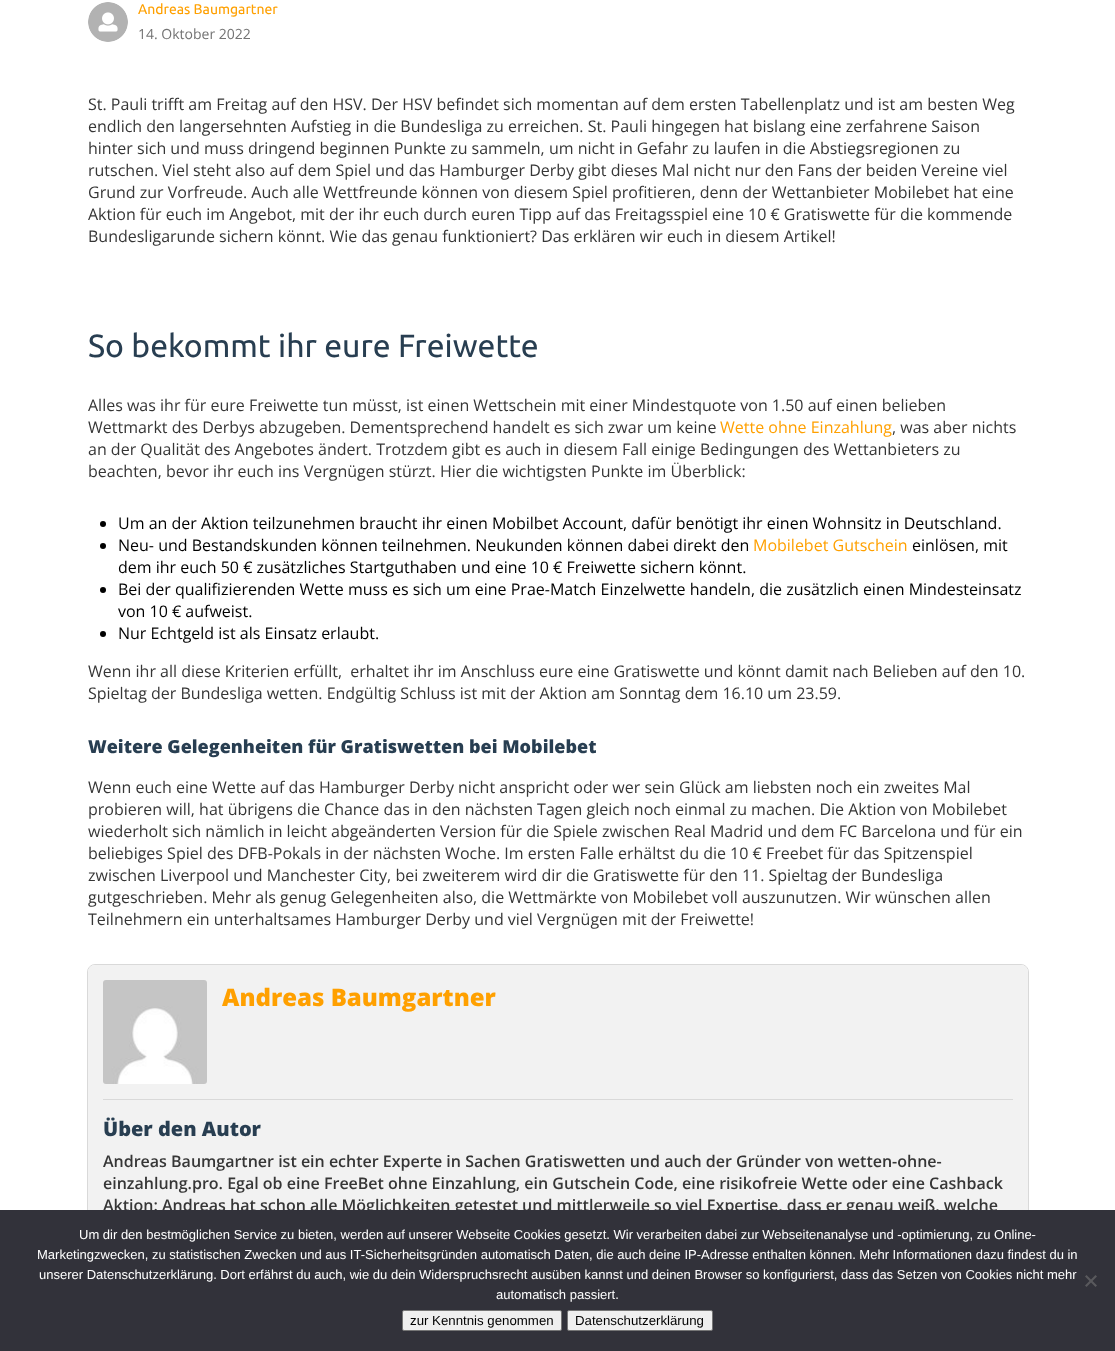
async function draw(canvas) {
	canvas.width = 1115;
	canvas.height = 1351;
	const c = canvas.getContext('2d');
	c.miterLimit = 4;
	c.fontKerning = 'normal';
	async function loadImage(src) {
		const img = new Image();
		img.src = src;
		await img.decode();
		return img;
	}

	c.fillStyle = '#fff';
	c.fillRect(0, 0, 1115, 1351);
	c.drawImage(await loadImage('img1.png'), 88, 2, 40, 40);
	c.font = '14px Ubuntu';
	c.fillStyle = '#ffa000';
	c.fillText('Andreas Baumgartner', 138, 14);
	c.font = '14px Open Sans';
	c.fillStyle = '#737373';
	c.fillText('14. Oktober 2022', 138, 39);
	c.font = '16px Open Sans';
	c.fillStyle = '#363636';
	for (const [text, x, y] of [
		['St. Pauli trifft am Freitag auf den HSV. Der HSV befindet sich momentan auf dem ersten Tabellenplatz und ist am besten Weg', 88, 110],
		['endlich den langersehnten Aufstieg in die Bundesliga zu erreichen. St. Pauli hingegen hat bislang eine zerfahrene Saison', 88, 132],
		['hinter sich und muss dringend beginnen Punkte zu sammeln, um nicht in Gefahr zu laufen in die Abstiegsregionen zu', 88, 154],
		['rutschen. Viel steht also auf dem Spiel und das Hamburger Derby gibt dieses Mal nicht nur den Fans der beiden Vereine viel', 88, 176],
		['Grund zur Vorfreude. Auch alle Wettfreunde können von diesem Spiel profitieren, denn der Wettanbieter Mobilebet hat eine', 88, 198],
		['Aktion für euch im Angebot, mit der ihr euch durch euren Tipp auf das Freitagsspiel eine 10 € Gratiswette für die kommende', 88, 220],
		['Bundesligarunde sichern könnt. Wie das genau funktioniert? Das erklären wir euch in diesem Artikel!', 88, 242],
	]) {
		c.fillText(text, x, y);
	}
	c.font = '32px Ubuntu';
	c.fillStyle = '#283e51';
	c.fillText('So bekommt ihr eure Freiwette', 88, 357);
	c.font = '16px Open Sans';
	c.fillStyle = '#363636';
	c.fillText('Alles was ihr für eure Freiwette tun müsst, ist einen Wettschein mit einer Mindestquote von 1.50 auf einen belieben', 88, 411);
	c.fillText('Wettmarkt des Derbys abzugeben. Dementsprechend handelt es sich zwar um keine', 88, 433);
	c.fillStyle = '#ffa000';
	c.fillText('Wette ohne Einzahlung', 720, 433);
	c.fillStyle = '#363636';
	for (const [text, x, y] of [
		[', was aber nichts', 892, 433],
		['an der Qualität des Angebotes ändert. Trotzdem gibt es auch in diesem Fall einige Bedingungen des Wettanbieters zu', 88, 455],
		['beachten, bevor ihr euch ins Vergnügen stürzt. Hier die wichtigsten Punkte im Überblick:', 88, 477],
	]) {
		c.fillText(text, x, y);
	}
	c.fillStyle = '#000';
	c.beginPath();
	c.arc(103, 524, 3, 0, 2 * Math.PI);
	c.fill();
	c.fillText('Um an der Aktion teilzunehmen braucht ihr einen Mobilbet Account, dafür benötigt ihr einen Wohnsitz in Deutschland.', 118, 529);
	c.beginPath();
	c.arc(103, 546, 3, 0, 2 * Math.PI);
	c.fill();
	c.fillText('Neu- und Bestandskunden können teilnehmen. Neukunden können dabei direkt den', 118, 551);
	c.fillStyle = '#ffa000';
	c.fillText('Mobilebet Gutschein', 753, 551);
	c.fillStyle = '#000';
	c.fillText('einlösen, mit', 912, 551);
	c.fillText('dem ihr euch 50 € zusätzliches Startguthaben und eine 10 € Freiwette sichern könnt.', 118, 573);
	c.beginPath();
	c.arc(103, 590, 3, 0, 2 * Math.PI);
	c.fill();
	c.fillText('Bei der qualifizierenden Wette muss es sich um eine Prae-Match Einzelwette handeln, die zusätzlich einen Mindesteinsatz', 118, 595);
	c.fillText('von 10 € aufweist.', 118, 617);
	c.beginPath();
	c.arc(103, 634, 3, 0, 2 * Math.PI);
	c.fill();
	c.fillText('Nur Echtgeld ist als Einsatz erlaubt.', 118, 639);
	c.fillStyle = '#363636';
	c.fillText('Wenn ihr all diese Kriterien erfüllt,  erhaltet ihr im Anschluss eure eine Gratiswette und könnt damit nach Belieben auf den 10.', 88, 677);
	c.fillText('Spieltag der Bundesliga wetten. Endgültig Schluss ist mit der Aktion am Sonntag dem 16.10 um 23.59.', 88, 699);
	c.font = '800 18px Open Sans';
	c.fillStyle = '#283e51';
	c.fillText('Weitere Gelegenheiten für Gratiswetten bei Mobilebet', 88, 753);
	c.font = '16px Open Sans';
	c.fillStyle = '#363636';
	for (const [text, x, y] of [
		['Wenn euch eine Wette auf das Hamburger Derby nicht anspricht oder wer sein Glück am liebsten noch ein zweites Mal', 88, 793],
		['probieren will, hat übrigens die Chance das in den nächsten Tagen gleich noch einmal zu machen. Die Aktion von Mobilebet', 88, 815],
		['wiederholt sich nämlich in leicht abgeänderten Version für die Spiele zwischen Real Madrid und dem FC Barcelona und für ein', 88, 837],
		['beliebiges Spiel des DFB-Pokals in der nächsten Woche. Im ersten Falle erhältst du die 10 € Freebet für das Spitzenspiel', 88, 859],
		['zwischen Liverpool und Manchester City, bei zweiterem wird dir die Gratiswette für den 11. Spieltag der Bundesliga', 88, 881],
		['gutgeschrieben. Mehr als genug Gelegenheiten also, die Wettmärkte von Mobilebet voll auszunutzen. Wir wünschen allen', 88, 903],
		['Teilnehmern ein unterhaltsames Hamburger Derby und viel Vergnügen mit der Freiwette!', 88, 925],
	]) {
		c.fillText(text, x, y);
	}
	c.beginPath();
	c.roundRect(87.5, 964.5, 941, 333, 7.5);
	c.strokeStyle = '#d9d9d9';
	c.stroke();
	c.fillStyle = '#f2f2f2';
	c.beginPath();
	c.roundRect(88, 965, 940, 332, 7);
	c.fill();
	c.drawImage(await loadImage('img2.png'), 103, 980, 104, 104);
	c.font = '800 24px Open Sans';
	c.fillStyle = '#ffa000';
	c.fillText('Andreas Baumgartner', 222, 1006);
	c.fillStyle = '#d9d9d9';
	c.fillRect(103, 1099, 910, 1);
	c.font = '800 20px Open Sans';
	c.fillStyle = '#283e51';
	c.fillText('Über den Autor', 103, 1136);
	c.font = '600 16px Open Sans';
	c.fillStyle = '#363636';
	for (const [text, x, y] of [
		['Andreas Baumgartner ist ein echter Experte in Sachen Gratiswetten und auch der Gründer von wetten-ohne-', 103, 1167],
		['einzahlung.pro. Egal ob eine FreeBet ohne Einzahlung, ein Gutschein Code, eine risikofreie Wette oder eine Cashback', 103, 1189],
		['Aktion: Andreas hat schon alle Möglichkeiten getestet und mittlerweile so viel Expertise, dass er genau weiß, welche', 103, 1211],
	]) {
		c.fillText(text, x, y);
	}
	c.fillStyle = '#32323a';
	c.fillRect(0, 1210, 1115, 141);
	c.font = '13px Liberation Sans';
	c.fillStyle = '#fff';
	for (const [text, x, y] of [
		['Um dir den bestmöglichen Service zu bieten, werden auf unserer Webseite Cookies gesetzt. Wir verarbeiten dabei zur Webseitenanalyse und -optimierung, zu Online-', 79, 1239],
		['Marketingzwecken, zu statistischen Zwecken und aus IT-Sicherheitsgründen automatisch Daten, die auch deine IP-Adresse enthalten können. Mehr Informationen dazu findest du in', 37, 1259],
		['unserer Datenschutzerklärung. Dort erfährst du auch, wie du dein Widerspruchsrecht ausüben kannst und deinen Browser so konfigurierst, dass das Setzen von Cookies nicht mehr', 39, 1279],
		['automatisch passiert.', 496, 1299],
	]) {
		c.fillText(text, x, y);
	}
	c.fillStyle = '#59595d';
	c.beginPath();
	c.moveTo(1095.5, 1275);
	c.lineTo(1097, 1276.5);
	c.lineTo(1086.5, 1287);
	c.lineTo(1085, 1285.5);
	c.closePath();
	c.fill();
	c.beginPath();
	c.moveTo(1085, 1276.5);
	c.lineTo(1086.5, 1275);
	c.lineTo(1097, 1285.5);
	c.lineTo(1095.5, 1287);
	c.closePath();
	c.fill();
	c.fillStyle = '#efefef';
	c.beginPath();
	c.roundRect(402.5, 1310.5, 159, 20, 1.5);
	c.fill();
	c.strokeStyle = '#767676';
	c.stroke();
	c.font = '13.25px Liberation Sans';
	c.fillStyle = '#000';
	c.fillText('zur Kenntnis genommen', 410, 1325);
	c.fillStyle = '#efefef';
	c.beginPath();
	c.roundRect(567.5, 1310.5, 145, 20, 1.5);
	c.fill();
	c.stroke();
	c.fillStyle = '#000';
	c.fillText('Datenschutzerklärung', 575, 1325);
}

draw(document.querySelector('canvas'));
